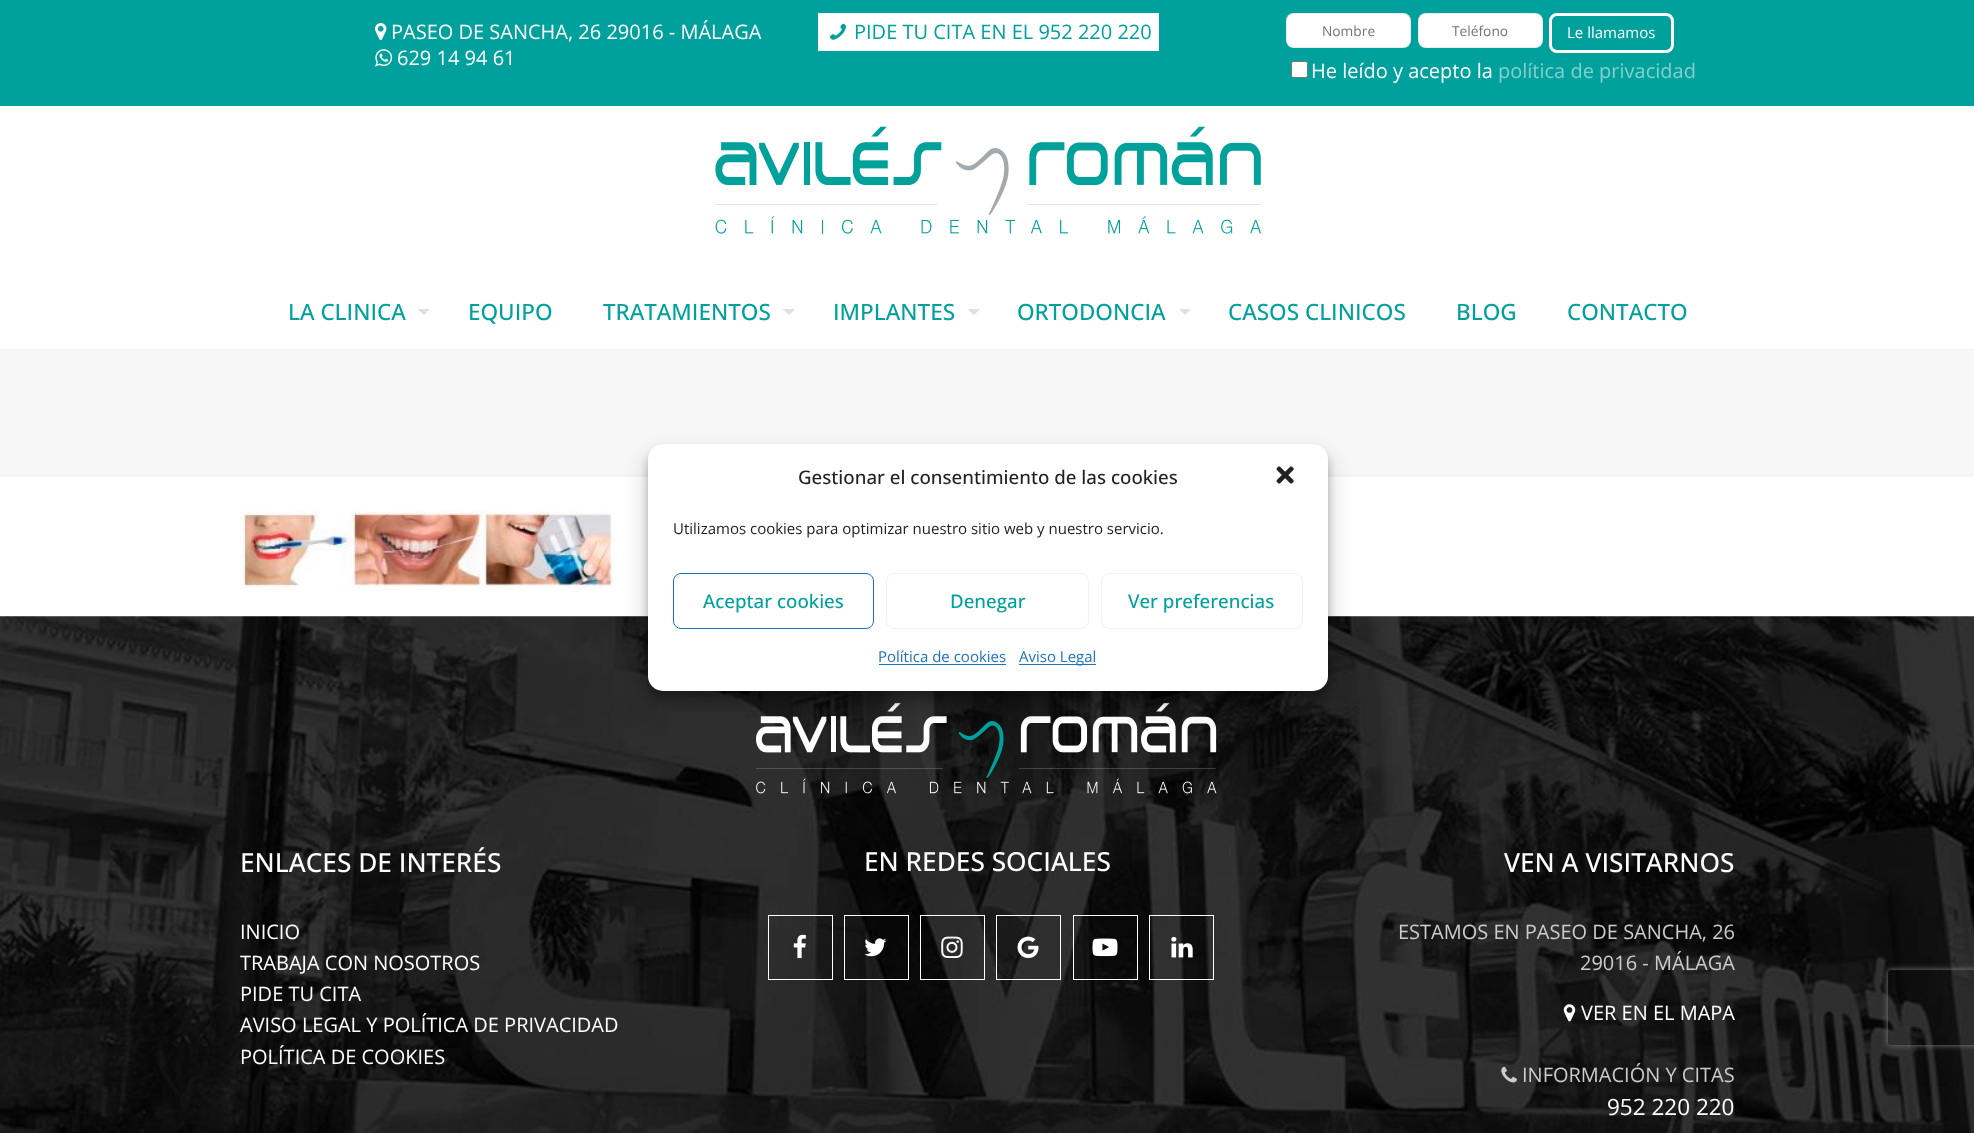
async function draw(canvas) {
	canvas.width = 1974;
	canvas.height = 1133;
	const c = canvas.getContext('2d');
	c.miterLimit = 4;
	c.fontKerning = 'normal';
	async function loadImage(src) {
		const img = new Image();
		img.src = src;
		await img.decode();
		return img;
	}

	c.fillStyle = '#fff';
	c.fillRect(0, 0, 1974, 1133);
	c.fillStyle = '#00a19c';
	c.fillRect(0, 0, 1974, 106);
	c.drawImage(await loadImage('img1.png'), 375, 23, 12, 18);
	c.font = '20px Open Sans';
	c.fillStyle = '#fff';
	c.fillText('PASEO DE SANCHA, 26 29016 - MÁLAGA', 391, 39);
	c.drawImage(await loadImage('img2.png'), 375, 49, 18, 18);
	c.fillText('629 14 94 61', 397, 65);
	c.fillRect(818, 13, 341, 38);
	c.drawImage(await loadImage('img3.png'), 830, 23, 16, 17);
	c.fillStyle = '#00a19c';
	c.fillText('PIDE TU CITA EN EL 952 220 220', 854, 39);
	c.fillStyle = '#fff';
	c.beginPath();
	c.roundRect(1286, 13, 125, 35, 8);
	c.fill();
	c.beginPath();
	c.roundRect(1286.5, 13.5, 124, 34, 7.5);
	c.strokeStyle = '#00000014';
	c.stroke();
	c.font = '13.75px Open Sans';
	c.fillStyle = '#757575';
	c.fillText('Nombre', 1322, 36);
	c.fillStyle = '#fff';
	c.beginPath();
	c.roundRect(1418, 13, 125, 35, 8);
	c.fill();
	c.beginPath();
	c.roundRect(1418.5, 13.5, 124, 34, 7.5);
	c.stroke();
	c.fillStyle = '#757575';
	c.fillText('Teléfono', 1452, 36);
	c.beginPath();
	c.roundRect(1550.5, 14.5, 122, 37, 6.5);
	c.strokeStyle = '#fff';
	c.lineWidth = 3;
	c.stroke();
	c.font = '15px Open Sans';
	c.fillStyle = '#fff';
	c.fillText('Le llamamos', 1567, 38);
	c.beginPath();
	c.roundRect(1291.5, 61.5, 16, 16, 2);
	c.fill();
	c.strokeStyle = '#767676';
	c.lineWidth = 1;
	c.stroke();
	c.font = '20px Open Sans';
	c.fillText('He leído y acepto la', 1311, 78);
	c.fillStyle = '#84d0cc';
	c.fillText('política de privacidad', 1498, 78);
	c.drawImage(await loadImage('img4.png'), 715, 126, 546, 108);
	c.font = '500 22.5px Open Sans';
	c.fillStyle = '#00a19c';
	c.fillText('LA CLINICA', 288, 320);
	c.fillStyle = '#e0e0e0';
	c.beginPath();
	c.moveTo(417.5, 309);
	c.lineTo(430, 309);
	c.lineTo(424, 315);
	c.closePath();
	c.fill();
	c.fillStyle = '#00a19c';
	c.fillText('EQUIPO', 468, 320);
	c.fillText('TRATAMIENTOS', 603, 320);
	c.fillStyle = '#e0e0e0';
	c.beginPath();
	c.moveTo(782.5, 309);
	c.lineTo(795, 309);
	c.lineTo(789, 315);
	c.closePath();
	c.fill();
	c.fillStyle = '#00a19c';
	c.fillText('IMPLANTES', 833, 320);
	c.fillStyle = '#e0e0e0';
	c.beginPath();
	c.moveTo(967.5, 309);
	c.lineTo(980, 309);
	c.lineTo(974, 315);
	c.closePath();
	c.fill();
	c.fillStyle = '#00a19c';
	c.fillText('ORTODONCIA', 1017, 320);
	c.fillStyle = '#e0e0e0';
	c.beginPath();
	c.moveTo(1179, 309);
	c.lineTo(1191, 309);
	c.lineTo(1185, 315);
	c.closePath();
	c.fill();
	c.fillStyle = '#00a19c';
	for (const [text, x, y] of [
		['CASOS CLINICOS', 1228, 320],
		['BLOG', 1456, 320],
		['CONTACTO', 1567, 320],
	]) {
		c.fillText(text, x, y);
	}
	c.fillStyle = '#f7f7f7';
	c.fillRect(0, 349, 1974, 125);
	c.fillStyle = '#f5f5f5';
	c.fillRect(0, 474, 1974, 3);
	c.drawImage(await loadImage('img5.png'), 240, 511, 375, 78);
	c.drawImage(await loadImage('img6.png'), 0, 616, 1974, 517);
	c.font = '500 26.25px Open Sans';
	c.fillStyle = '#fff';
	c.fillText('ENLACES DE INTERÉS', 240, 872);
	c.font = '20px Open Sans';
	for (const [text, x, y] of [
		['INICIO', 240, 939],
		['TRABAJA CON NOSOTROS', 240, 970],
		['PIDE TU CITA', 240, 1001],
		['AVISO LEGAL Y POLÍTICA DE PRIVACIDAD', 240, 1032],
		['POLÍTICA DE COOKIES', 240, 1064],
	]) {
		c.fillText(text, x, y);
	}
	c.drawImage(await loadImage('img7.png'), 756, 703, 461, 91);
	c.font = '500 26.25px Open Sans';
	c.fillText('EN REDES SOCIALES', 864, 871);
	c.strokeStyle = '#fff';
	c.strokeRect(768.5, 915.5, 64, 64);
	c.drawImage(await loadImage('img8.png'), 793, 934, 13, 25);
	c.strokeRect(844.5, 915.5, 64, 64);
	c.drawImage(await loadImage('img9.png'), 864, 938, 23, 19);
	c.strokeRect(920.5, 915.5, 64, 64);
	c.drawImage(await loadImage('img10.png'), 941, 936, 22, 22);
	c.strokeRect(996.5, 915.5, 64, 64);
	c.drawImage(await loadImage('img11.png'), 1017, 936, 22, 22);
	c.strokeRect(1073.5, 915.5, 64, 64);
	c.drawImage(await loadImage('img12.png'), 1092, 938, 26, 19);
	c.strokeRect(1149.5, 915.5, 64, 64);
	c.drawImage(await loadImage('img13.png'), 1171, 936, 22, 22);
	c.fillText('VEN A VISITARNOS', 1504, 872);
	c.font = '20px Open Sans';
	c.fillStyle = '#ccc';
	c.fillText('ESTAMOS EN PASEO DE SANCHA, 26', 1398, 939);
	c.fillText('29016 - MÁLAGA', 1580, 970);
	c.drawImage(await loadImage('img14.png'), 1563, 1004, 13, 18);
	c.fillStyle = '#fff';
	c.fillText('VER EN EL MAPA', 1581, 1020);
	c.drawImage(await loadImage('img15.png'), 1501, 1066, 16, 17);
	c.fillStyle = '#ccc';
	c.fillText('INFORMACIÓN Y CITAS', 1522, 1082);
	c.font = '22.5px Open Sans';
	c.fillStyle = '#fff';
	c.fillText('952 220 220', 1607, 1115);
	c.fillStyle = '#0000003b';
	c.filter = 'blur(4px)';
	c.beginPath();
	c.roundRect(648, 451, 680, 248, 15);
	c.fill();
	c.filter = 'none';
	c.fillStyle = '#00000030';
	c.filter = 'blur(12.5px)';
	c.beginPath();
	c.roundRect(648, 456, 680, 248, 15);
	c.fill();
	c.filter = 'none';
	c.fillStyle = '#fff';
	c.beginPath();
	c.roundRect(648, 444, 680, 247, 15);
	c.fill();
	c.font = '500 18.75px Open Sans';
	c.fillStyle = '#222';
	c.fillText('Gestionar el consentimiento de las cookies', 798, 484);
	c.drawImage(await loadImage('img16.png'), 1276, 466, 18, 18);
	c.font = '15px Open Sans';
	c.fillText('Utilizamos cookies para optimizar nuestro sitio web y nuestro servicio.', 673, 534);
	c.beginPath();
	c.roundRect(673.5, 573.5, 200, 55, 7.5);
	c.strokeStyle = '#1e73be';
	c.stroke();
	c.font = '500 18.75px Open Sans';
	c.fillStyle = '#00a19c';
	c.fillText('Aceptar cookies', 703, 608);
	c.beginPath();
	c.roundRect(886.5, 573.5, 202, 55, 7.5);
	c.strokeStyle = '#f2f2f2';
	c.stroke();
	c.fillText('Denegar', 950, 608);
	c.beginPath();
	c.roundRect(1101.5, 573.5, 201, 55, 7.5);
	c.stroke();
	c.fillText('Ver preferencias', 1128, 608);
	c.font = '15px Open Sans';
	c.fillStyle = '#1e73be';
	c.fillText('Política de cookies', 878, 662);
	c.fillRect(879, 664, 127, 1);
	c.fillRect(1019, 664, 77, 1);
	c.fillText('Aviso Legal', 1019, 662);
	c.save();
	c.beginPath();
	c.moveTo(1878, 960);
	c.lineTo(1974, 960);
	c.lineTo(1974, 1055);
	c.lineTo(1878, 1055);
	c.closePath();
	c.moveTo(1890.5, 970);
	c.lineTo(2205.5, 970);
	c.bezierCurveTo(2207, 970, 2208, 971, 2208, 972.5);
	c.lineTo(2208, 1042.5);
	c.bezierCurveTo(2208, 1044, 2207, 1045, 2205.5, 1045);
	c.lineTo(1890.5, 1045);
	c.bezierCurveTo(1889, 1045, 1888, 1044, 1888, 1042.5);
	c.lineTo(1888, 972.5);
	c.bezierCurveTo(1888, 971, 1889, 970, 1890.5, 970);
	c.closePath();
	c.clip('evenodd');
	c.fillStyle = '#808080';
	c.filter = 'blur(3px)';
	c.beginPath();
	c.roundRect(1888, 970, 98, 75, 2.5);
	c.fill();
	c.filter = 'none';
	c.restore();
}

draw(document.querySelector('canvas'));
